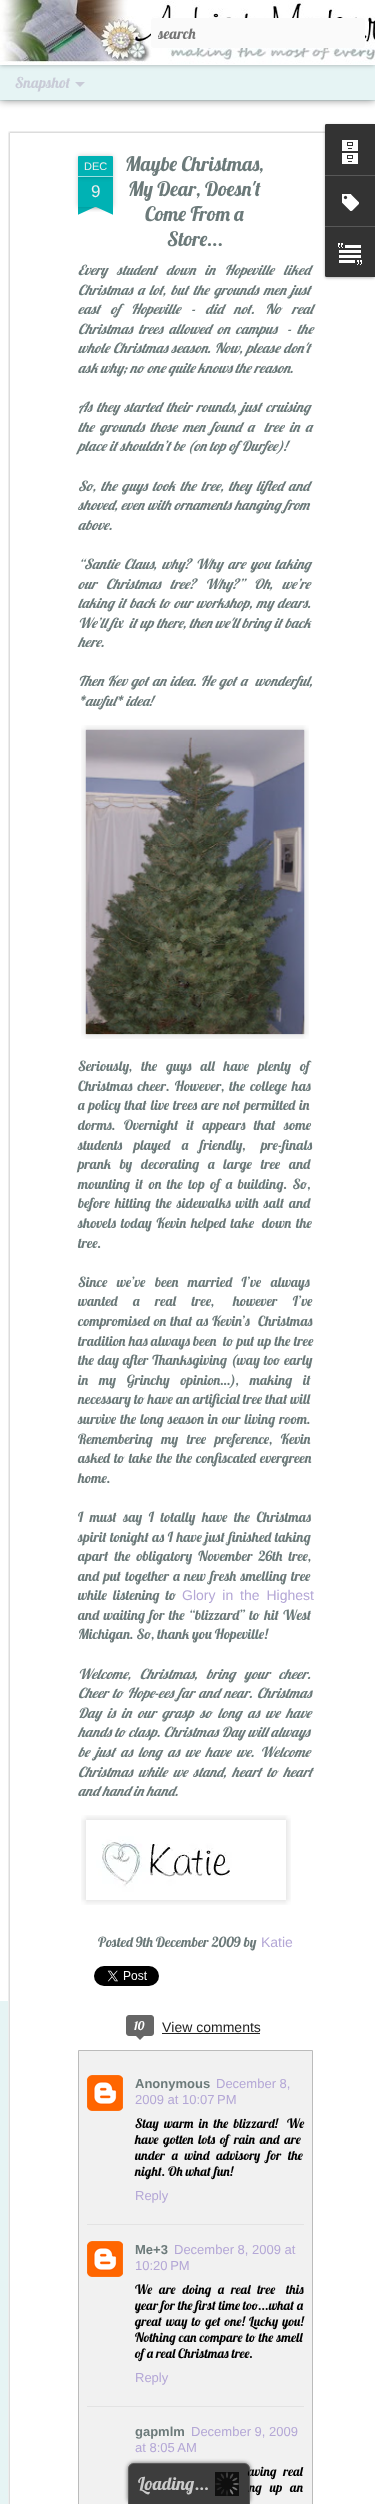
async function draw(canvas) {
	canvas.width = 375;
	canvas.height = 2504;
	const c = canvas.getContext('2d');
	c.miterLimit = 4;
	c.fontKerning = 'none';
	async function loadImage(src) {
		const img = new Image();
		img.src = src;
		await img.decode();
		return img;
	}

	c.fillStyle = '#e6f4f4';
	c.fillRect(0, 0, 375, 2504);
	c.fillStyle = '#fff';
	c.fillRect(0, 101, 375, 1900);
	c.fillStyle = '#00000080';
	c.filter = 'blur(4px)';
	c.beginPath();
	c.rect(0, 65, 375, 35);
	c.fill();
	c.filter = 'none';
	c.fillStyle = '#e6f4f4';
	c.fillRect(0, 65, 375, 35);
	c.fillStyle = '#0000004d';
	c.filter = 'blur(2.5px)';
	c.beginPath();
	c.rect(0, 0, 375, 65);
	c.fill();
	c.filter = 'none';
	c.drawImage(await loadImage('img1.png'), 0, 0, 375, 65);
	c.font = '28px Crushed';
	c.fillStyle = '#9e9d9b';
	c.fillText('…', 117, 41);
	c.fillStyle = '#fafafa';
	c.beginPath();
	c.roundRect(151, 18, 214, 30, 3);
	c.fill();
	c.save();
	c.beginPath();
	c.rect(158, 24, 200, 19);
	c.clip();
	c.font = '15px Lobster';
	c.fillStyle = '#757575';
	c.fillText('search', 158, 39);
	c.restore();
	c.font = '15px Lobster';
	c.fillStyle = '#c9cbd7';
	c.fillText('Snapshot', 15, 88);
	c.beginPath();
	c.moveTo(75, 82);
	c.lineTo(85, 82);
	c.lineTo(80, 87);
	c.closePath();
	c.fill();
	c.fillStyle = '#fff';
	c.fillRect(8, 2001, 367, 503);
	c.drawImage(await loadImage('img2.png'), 8, 131, 317, 2373);
	c.fillStyle = '#00000033';
	c.filter = 'blur(2.5px)';
	c.beginPath();
	c.rect(78, 177, 35, 30);
	c.fill();
	c.filter = 'none';
	c.fillStyle = '#00b2b4';
	c.fillRect(78, 177, 35, 30);
	c.fillStyle = '#00000033';
	c.filter = 'blur(2.5px)';
	c.beginPath();
	c.roundRect(78, 156, 35, 21, 1);
	c.fill();
	c.filter = 'none';
	c.fillStyle = '#00b2b4';
	c.beginPath();
	c.roundRect(78, 156, 35, 21, [1, 1, 0, 0]);
	c.fill();
	c.fillStyle = '#99e0e1';
	c.fillRect(78, 176, 35, 1);
	c.font = '11px Liberation Sans';
	c.fillStyle = '#eee';
	c.fillText('DEC', 84, 170);
	c.font = '17px Liberation Sans';
	c.fillText('9', 91, 197);
	c.save();
	c.beginPath();
	c.rect(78, 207, 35, 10);
	c.clip();
	c.fillStyle = '#00000033';
	c.filter = 'blur(2.5px)';
	c.beginPath();
	c.rect(69, 197, 50, 10);
	c.fill();
	c.filter = 'none';
	c.restore();
	c.save();
	c.beginPath();
	c.rect(78, 207, 35, 10);
	c.clip();
	c.fillStyle = '#00b2b4';
	c.beginPath();
	c.moveTo(69, 208);
	c.lineTo(115, 187);
	c.lineTo(119, 196);
	c.lineTo(73, 217);
	c.closePath();
	c.fill();
	c.restore();
	c.save();
	c.beginPath();
	c.rect(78, 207, 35, 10);
	c.clip();
	c.fillStyle = '#00000033';
	c.filter = 'blur(2.5px)';
	c.beginPath();
	c.rect(72, 197, 50, 10);
	c.fill();
	c.filter = 'none';
	c.restore();
	c.save();
	c.beginPath();
	c.rect(78, 207, 35, 10);
	c.clip();
	c.fillStyle = '#00b2b4';
	c.beginPath();
	c.moveTo(76, 187);
	c.lineTo(122, 208);
	c.lineTo(118, 217);
	c.lineTo(72, 196);
	c.closePath();
	c.fill();
	c.restore();
	c.font = '20px Lobster';
	c.fillStyle = '#6c7a7a';
	for (const [text, x, y] of [
		['Maybe Christmas,', 125, 171],
		['My Dear, Doesn\'t', 128, 196],
		['Come From a', 145, 221],
		['Store...', 167, 246],
	]) {
		c.fillText(text, x, y);
	}
	c.wordSpacing = '6.5px';
	c.font = 'italic 14px Lobster';
	c.fillText('Every student down in Hopeville liked', 78, 275);
	c.wordSpacing = '2px';
	c.fillText('Christmas a lot, but the grounds men just', 78, 295);
	c.wordSpacing = '7.5px';
	c.fillText('east of Hopeville - did not. No real', 78, 314);
	c.wordSpacing = '3px';
	c.fillText('Christmas trees allowed on campus', 78, 334);
	c.fillText('- the', 287, 334);
	c.wordSpacing = '0.75px';
	c.fillText('whole Christmas season. Now, please don\'t', 78, 353);
	c.wordSpacing = '0px';
	c.fillText('ask why; no one quite knows the reason.', 78, 373);
	c.wordSpacing = '1.75px';
	c.fillText('As they started their rounds, just cruising', 78, 412);
	c.wordSpacing = '2.75px';
	c.fillText('the grounds those men found a', 78, 432);
	c.fillText('tree in a', 264, 432);
	c.wordSpacing = '0px';
	c.fillText('place it shouldn’t be (on top of Durfee)!', 78, 451);
	c.wordSpacing = '2px';
	c.fillText('So, the guys took the tree, they lifted and', 78, 491);
	c.wordSpacing = '0.5px';
	c.fillText('shoved, even with ornaments hanging from', 78, 510);
	c.wordSpacing = '0px';
	c.fillText('above.', 78, 530);
	c.wordSpacing = '2px';
	c.fillText('“Santie Claus, why? Why are you taking', 78, 569);
	c.wordSpacing = '6.5px';
	c.fillText('our Christmas tree? Why?” Oh, we’re', 78, 589);
	c.wordSpacing = '1px';
	c.fillText('taking it back to our workshop, my dears.', 78, 608);
	c.wordSpacing = '0.1px';
	c.fillText('We’ll fix', 78, 628);
	c.fillText('it up there, then we\'ll bring it back', 129, 628);
	c.wordSpacing = '0px';
	c.fillText('here.', 78, 647);
	c.wordSpacing = '1px';
	c.fillText('Then Kev got an idea. He got a', 78, 686);
	c.fillText('wonderful,', 255, 686);
	c.wordSpacing = '0px';
	c.fillText('*awful* idea!', 78, 706);
	c.drawImage(await loadImage('img3.png'), 81, 725, 228, 314);
	c.drawImage(await loadImage('img4.png'), 85, 729, 220, 306);
	c.wordSpacing = '6px';
	c.font = '14px Lobster';
	c.fillText('Seriously, the guys all have plenty of', 78, 1071);
	c.wordSpacing = '2px';
	c.fillText('Christmas cheer. However, the college has', 78, 1091);
	c.wordSpacing = '1px';
	c.fillText('a policy that live trees are not permitted in', 78, 1110);
	c.wordSpacing = '5.25px';
	c.fillText('dorms. Overnight it appears that some', 78, 1130);
	c.wordSpacing = '8.5px';
	c.fillText('students played a friendly,', 78, 1150);
	c.fillText('pre-finals', 261, 1150);
	c.wordSpacing = '5.75px';
	c.fillText('prank by decorating a large tree and', 78, 1169);
	c.wordSpacing = '2.5px';
	c.fillText('mounting it on the top of a building. So,', 78, 1189);
	c.wordSpacing = '2px';
	c.fillText('before hitting the sidewalks with salt and', 78, 1208);
	c.wordSpacing = '1.75px';
	c.fillText('shovels today Kevin helped take', 78, 1228);
	c.fillText('down the', 262, 1228);
	c.wordSpacing = '0px';
	c.fillText('tree.', 78, 1248);
	c.wordSpacing = '6.5px';
	c.fillText('Since we’ve been married I’ve always', 78, 1287);
	c.wordSpacing = '12.5px';
	c.fillText('wanted a real tree,', 78, 1306);
	c.fillText('however I’ve', 233, 1306);
	c.wordSpacing = '1px';
	c.fillText('compromised on that as Kevin’s', 78, 1326);
	c.fillText('Christmas', 258, 1326);
	c.wordSpacing = '0.25px';
	c.fillText('tradition has always been', 78, 1346);
	c.fillText('to put up the tree', 223, 1346);
	c.wordSpacing = '0.75px';
	c.fillText('the day after Thanksgiving (way too early', 78, 1365);
	c.wordSpacing = '7.75px';
	c.fillText('in my Grinchy opinion…), making it', 78, 1385);
	c.wordSpacing = '0px';
	c.fillText('necessary to have an artificial tree that will', 78, 1404);
	c.wordSpacing = '1px';
	c.fillText('survive the long season in our living room.', 78, 1424);
	c.wordSpacing = '5.5px';
	c.fillText('Remembering my tree preference, Kevin', 78, 1444);
	c.wordSpacing = '1px';
	c.fillText('asked to take the the confiscated evergreen', 78, 1463);
	c.wordSpacing = '0px';
	c.fillText('home.', 78, 1483);
	c.wordSpacing = '3.5px';
	c.fillText('I must say I totally have the Christmas', 78, 1522);
	c.wordSpacing = '0.5px';
	c.fillText('spirit tonight as I have just finished taking', 78, 1542);
	c.wordSpacing = '3px';
	c.fillText('apart the obligatory November 26th tree,', 78, 1561);
	c.wordSpacing = '1.25px';
	c.fillText('and put together a new fresh smelling tree', 78, 1581);
	c.wordSpacing = '3px';
	c.fillText('while listening to', 78, 1600);
	c.font = '14px Liberation Sans';
	c.fillStyle = '#b4a7d6';
	c.fillText('Glory in the Highest', 182, 1600);
	c.wordSpacing = '1.25px';
	c.font = '14px Lobster';
	c.fillStyle = '#6c7a7a';
	c.fillText('and waiting for the “blizzard” to hit West', 78, 1620);
	c.wordSpacing = '0px';
	c.fillText('Michigan. So, thank you Hopeville!', 78, 1639);
	c.wordSpacing = '6px';
	c.font = 'italic 14px Lobster';
	c.fillText('Welcome, Christmas, bring your cheer.', 78, 1679);
	c.wordSpacing = '1.25px';
	c.fillText('Cheer to Hope-ees far and near. Christmas', 78, 1698);
	c.wordSpacing = '3px';
	c.fillText('Day is in our grasp so long as we have', 78, 1718);
	c.wordSpacing = '0.25px';
	c.fillText('hands to clasp. Christmas Day will always', 78, 1737);
	c.wordSpacing = '2.75px';
	c.fillText('be just as long as we have we. Welcome', 78, 1757);
	c.fillText('Christmas while we stand, heart to heart', 78, 1777);
	c.wordSpacing = '0px';
	c.fillText('and hand in hand.', 78, 1796);
	c.drawImage(await loadImage('img5.png'), 81, 1815, 210, 90);
	c.font = '14px Lobster';
	c.fillText('Posted 9th December 2009 by', 98, 1947);
	c.font = '14px Liberation Sans';
	c.fillStyle = '#b4a7d6';
	c.fillText('Katie', 261, 1947);
	c.drawImage(await loadImage('img6.png'), 94, 1966, 65, 20);
	c.fillStyle = '#666';
	c.beginPath();
	c.roundRect(126.5, 2015.5, 27, 20, 2.5);
	c.fill();
	c.strokeStyle = '#666';
	c.stroke();
	c.font = '12px Lobster';
	c.fillStyle = '#fff';
	c.fillText('10', 134, 2030);
	c.fillStyle = '#666';
	c.beginPath();
	c.moveTo(135, 2035);
	c.lineTo(145, 2035);
	c.lineTo(140, 2040);
	c.closePath();
	c.fill();
	c.font = '14px Liberation Sans';
	c.fillStyle = '#222';
	c.fillText('View comments', 162, 2032);
	c.fillRect(162, 2033, 98, 1);
	c.fillStyle = '#f1f1f1';
	c.beginPath();
	c.rect(78.5, 2050.5, 234, 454);
	c.fill();
	c.strokeStyle = '#bbb';
	c.stroke();
	c.fillStyle = '#e3e3e3';
	c.fillRect(87, 2224, 217, 1);
	c.drawImage(await loadImage('img7.png'), 87, 2075, 36, 36);
	c.font = 'bold 13px Liberation Sans';
	c.fillStyle = '#6c7a7a';
	c.fillText('Anonymous', 135, 2088);
	c.font = '13px Liberation Sans';
	c.fillStyle = '#b4a7d6';
	c.fillText('December 8,', 216, 2088);
	c.fillText('2009 at 10:07 PM', 135, 2104);
	c.wordSpacing = '2.5px';
	c.font = '13px Lobster';
	c.fillStyle = '#000';
	c.fillText('Stay warm in the blizzard!', 135, 2128);
	c.fillText('We', 287, 2128);
	c.wordSpacing = '2px';
	c.fillText('have gotten lots of rain and are', 135, 2144);
	c.wordSpacing = '4px';
	c.fillText('under a wind advisory for the', 135, 2160);
	c.wordSpacing = '0px';
	c.fillText('night. Oh what fun!', 135, 2176);
	c.font = '13px Liberation Sans';
	c.fillStyle = '#b4a7d6';
	c.fillText('Reply', 135, 2200);
	c.fillStyle = '#e3e3e3';
	c.fillRect(87, 2406, 217, 1);
	c.drawImage(await loadImage('img7.png'), 87, 2241, 36, 36);
	c.font = 'bold 13px Liberation Sans';
	c.fillStyle = '#6c7a7a';
	c.fillText('Me+3', 135, 2254);
	c.font = '13px Liberation Sans';
	c.fillStyle = '#b4a7d6';
	c.fillText('December 8, 2009 at', 174, 2254);
	c.fillText('10:20 PM', 135, 2270);
	c.wordSpacing = '4px';
	c.font = '13px Lobster';
	c.fillStyle = '#000';
	c.fillText('We are doing a real tree', 135, 2294);
	c.fillText('this', 286, 2294);
	c.wordSpacing = '0px';
	c.fillText('year for the first time too...what a', 135, 2310);
	c.wordSpacing = '1.25px';
	c.fillText('great way to get one! Lucky you!', 135, 2326);
	c.wordSpacing = '0.25px';
	c.fillText('Nothing can compare to the smell', 135, 2342);
	c.wordSpacing = '0px';
	c.fillText('of a real Christmas tree.', 135, 2358);
	c.font = '13px Liberation Sans';
	c.fillStyle = '#b4a7d6';
	c.fillText('Reply', 135, 2382);
	c.font = 'bold 13px Liberation Sans';
	c.fillStyle = '#6c7a7a';
	c.fillText('gapmlm', 135, 2436);
	c.font = '13px Liberation Sans';
	c.fillStyle = '#b4a7d6';
	c.fillText('December 9, 2009', 191, 2436);
	c.fillText('at 8:05 AM', 135, 2452);
	c.wordSpacing = '4px';
	c.font = '13px Lobster';
	c.fillStyle = '#000';
	c.fillText('aving real', 248, 2476);
	c.wordSpacing = '5px';
	c.fillText('ng up an', 249, 2492);
	c.fillStyle = '#0000004d';
	c.filter = 'blur(1.5px)';
	c.beginPath();
	c.roundRect(325, 125, 50, 153, 2);
	c.fill();
	c.filter = 'none';
	c.fillStyle = '#333';
	c.beginPath();
	c.roundRect(325, 124, 50, 153, [2, 0, 0, 2]);
	c.fill();
	c.beginPath();
	c.roundRect(325, 124, 50, 51, [2, 0, 0, 0]);
	c.fill();
	c.drawImage(await loadImage('img8.png'), 342, 140, 16, 24);
	c.fillStyle = '#585858';
	c.fillRect(325, 175, 50, 1);
	c.drawImage(await loadImage('img9.png'), 342, 194, 17, 17);
	c.fillStyle = '#333';
	c.beginPath();
	c.roundRect(325, 226, 50, 51, [0, 0, 0, 2]);
	c.fill();
	c.fillStyle = '#585858';
	c.fillRect(325, 226, 50, 1);
	c.drawImage(await loadImage('img10.png'), 338, 243, 24, 22);
	c.save();
	c.beginPath();
	c.moveTo(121, 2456);
	c.lineTo(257, 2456);
	c.lineTo(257, 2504);
	c.lineTo(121, 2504);
	c.closePath();
	c.moveTo(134, 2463);
	c.lineTo(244, 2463);
	c.bezierCurveTo(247.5, 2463, 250, 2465.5, 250, 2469);
	c.lineTo(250, 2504);
	c.lineTo(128, 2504);
	c.lineTo(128, 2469);
	c.bezierCurveTo(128, 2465.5, 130.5, 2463, 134, 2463);
	c.closePath();
	c.clip('evenodd');
	c.fillStyle = '#333333bf';
	c.filter = 'blur(2px)';
	c.beginPath();
	c.roundRect(128, 2463, 122, 41, 6);
	c.fill();
	c.filter = 'none';
	c.restore();
	c.fillStyle = '#000000bf';
	c.beginPath();
	c.roundRect(128, 2463, 122, 41, [6, 6, 0, 0]);
	c.fill();
	c.fillStyle = '#666666bf';
	c.beginPath();
	c.moveTo(134, 2463);
	c.lineTo(244, 2463);
	c.bezierCurveTo(247, 2463, 250, 2466, 250, 2469);
	c.lineTo(250, 2504);
	c.lineTo(128, 2504);
	c.lineTo(128, 2469);
	c.bezierCurveTo(128, 2466, 131, 2463, 134, 2463);
	c.closePath();
	c.moveTo(134, 2464);
	c.lineTo(244, 2464);
	c.bezierCurveTo(247, 2464, 249, 2466, 249, 2469);
	c.lineTo(249, 2504);
	c.lineTo(129, 2504);
	c.lineTo(129, 2469);
	c.bezierCurveTo(129, 2466, 131, 2464, 134, 2464);
	c.closePath();
	c.fill('evenodd');
	c.drawImage(await loadImage('img11.png'), 215, 2472, 24, 24);
	c.wordSpacing = '0px';
	c.font = '18px Lobster';
	c.fillStyle = '#cbcbcb';
	c.fillText('Loading', 138, 2490);
	c.fillText('...', 195, 2490);
}

draw(document.querySelector('canvas'));
